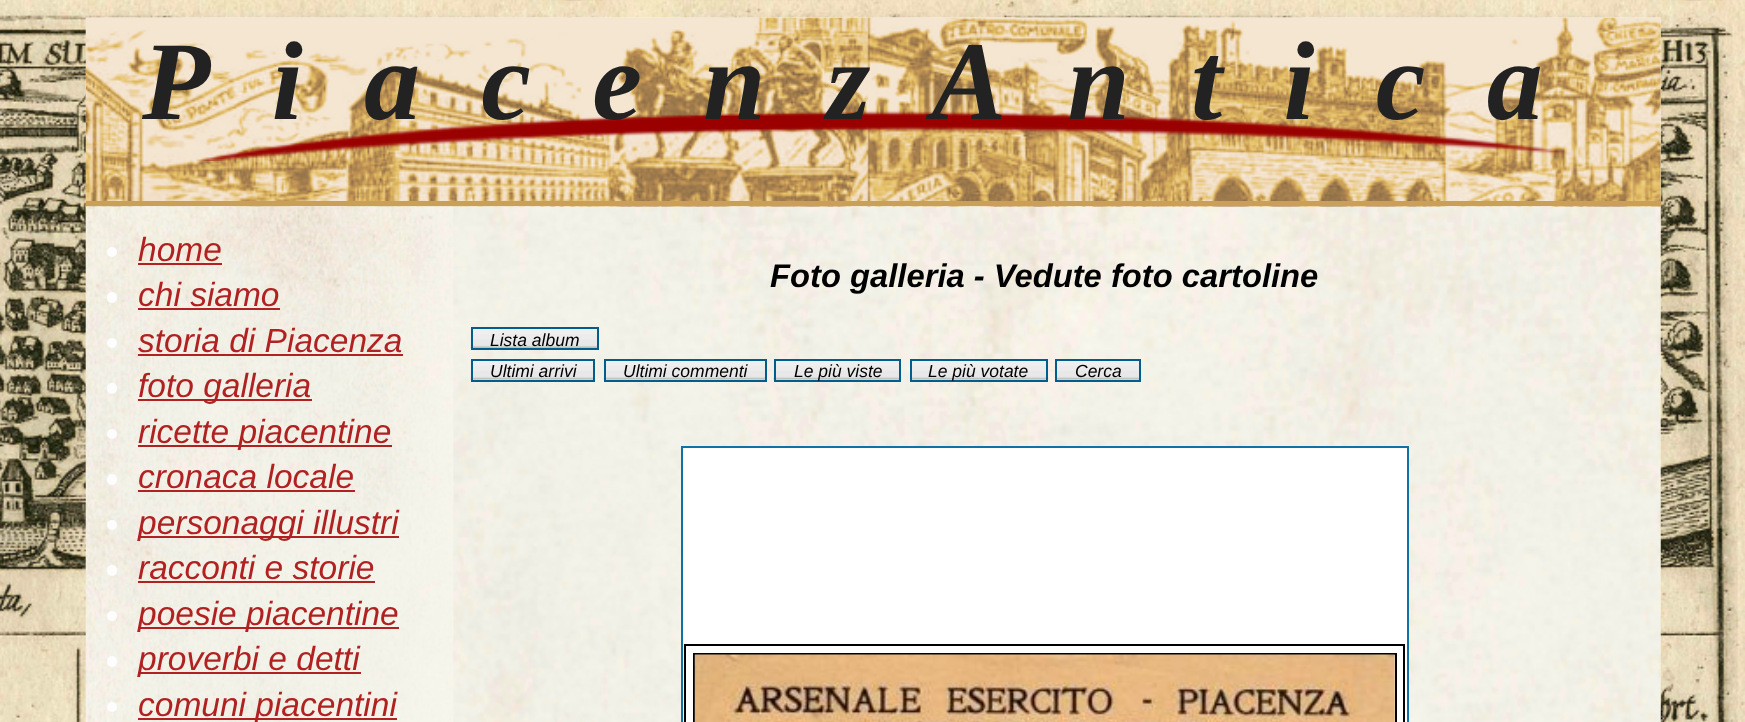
async function draw(canvas) {
	canvas.width = 1745;
	canvas.height = 722;
	const c = canvas.getContext('2d');
	c.miterLimit = 4;
	c.fontKerning = 'normal';
	async function loadImage(src) {
		const img = new Image();
		img.src = src;
		await img.decode();
		return img;
	}

	c.fillStyle = '#fff';
	c.fillRect(0, 0, 1745, 722);
	c.drawImage(await loadImage('img1.png'), 0, 0, 1745, 722);
	c.drawImage(await loadImage('img2.png'), 85, 17, 1576, 705);
	c.drawImage(await loadImage('img3.png'), 85, 17, 1576, 190);
	c.fillStyle = '#ca9f58';
	c.fillRect(86, 201, 1575, 5);
	c.drawImage(await loadImage('img4.png'), 196, 110, 1377, 51);
	c.letterSpacing = '61.25px';
	c.font = 'italic bold 112px Liberation Serif';
	c.fillStyle = '#222';
	c.fillText('PiacenzAntica', 142, 119);
	c.drawImage(await loadImage('img5.png'), 85, 206, 369, 516);
	c.fillStyle = '#fdfdfd';
	c.beginPath();
	c.arc(112, 252, 5, 0, 2 * Math.PI);
	c.fill();
	c.letterSpacing = '0px';
	c.font = 'italic 33.5px Liberation Sans';
	c.fillStyle = '#b02121';
	c.fillText('home', 138, 261);
	c.fillRect(138, 263, 84, 2);
	c.fillStyle = '#fdfdfd';
	c.beginPath();
	c.roundRect(107, 292, 10, 11, 5);
	c.fill();
	c.fillStyle = '#b02121';
	c.fillText('chi siamo', 138, 306);
	c.fillRect(138, 308, 142, 2);
	c.fillStyle = '#fdfdfd';
	c.beginPath();
	c.arc(112, 343, 5, 0, 2 * Math.PI);
	c.fill();
	c.fillStyle = '#b02121';
	c.fillText('storia di Piacenza', 138, 352);
	c.fillRect(138, 354, 265, 2);
	c.fillStyle = '#fdfdfd';
	c.beginPath();
	c.roundRect(107, 383, 10, 11, 5);
	c.fill();
	c.fillStyle = '#b02121';
	c.fillRect(138, 399, 174, 2);
	c.fillText('foto galleria', 138, 397);
	c.fillStyle = '#fdfdfd';
	c.beginPath();
	c.arc(112, 434, 5, 0, 2 * Math.PI);
	c.fill();
	c.fillStyle = '#b02121';
	c.fillRect(138, 445, 254, 2);
	c.fillText('ricette piacentine', 138, 443);
	c.fillStyle = '#fdfdfd';
	c.beginPath();
	c.roundRect(107, 474, 10, 11, 5);
	c.fill();
	c.fillStyle = '#b02121';
	c.fillText('cronaca locale', 138, 488);
	c.fillRect(138, 490, 217, 2);
	c.fillStyle = '#fdfdfd';
	c.beginPath();
	c.arc(112, 525, 5, 0, 2 * Math.PI);
	c.fill();
	c.fillStyle = '#b02121';
	c.fillRect(138, 536, 261, 2);
	c.fillText('personaggi illustri', 138, 534);
	c.fillStyle = '#fdfdfd';
	c.beginPath();
	c.roundRect(107, 565, 10, 11, 5);
	c.fill();
	c.fillStyle = '#b02121';
	c.fillText('racconti e storie', 138, 579);
	c.fillRect(138, 581, 237, 2);
	c.fillStyle = '#fdfdfd';
	c.beginPath();
	c.arc(112, 616, 5, 0, 2 * Math.PI);
	c.fill();
	c.fillStyle = '#b02121';
	c.fillRect(138, 627, 261, 2);
	c.fillText('poesie piacentine', 138, 625);
	c.fillStyle = '#fdfdfd';
	c.beginPath();
	c.roundRect(107, 656, 10, 11, 5);
	c.fill();
	c.fillStyle = '#b02121';
	c.fillRect(138, 672, 223, 2);
	c.fillText('proverbi e detti', 138, 670);
	c.fillStyle = '#fdfdfd';
	c.beginPath();
	c.arc(112, 707, 5, 0, 2 * Math.PI);
	c.fill();
	c.fillStyle = '#b02121';
	c.fillRect(138, 718, 259, 2);
	c.fillText('comuni piacentini', 138, 716);
	c.font = 'italic bold 32.75px Liberation Sans';
	c.fillStyle = '#000';
	c.fillText('Foto galleria - Vedute foto cartoline', 770, 287);
	c.drawImage(await loadImage('img6.png'), 470, 327, 127, 23);
	c.strokeStyle = '#005d8c';
	c.lineWidth = 2;
	c.strokeRect(472, 328, 126, 21);
	c.font = 'italic 17.5px Liberation Sans';
	c.fillText('Lista album', 490, 346);
	c.drawImage(await loadImage('img7.png'), 470, 358, 125, 24);
	c.drawImage(await loadImage('img8.png'), 603, 359, 162, 23);
	c.drawImage(await loadImage('img9.png'), 773, 358, 129, 24);
	c.drawImage(await loadImage('img10.png'), 910, 358, 139, 24);
	c.drawImage(await loadImage('img11.png'), 1057, 361, 82, 19);
	c.strokeRect(472, 360, 122, 21);
	c.fillText('Ultimi arrivi', 490, 377);
	c.strokeRect(605, 360, 161, 21);
	c.fillText('Ultimi commenti', 623, 377);
	c.strokeRect(775, 360, 125, 21);
	c.fillText('Le più viste', 794, 377);
	c.strokeRect(911, 360, 136, 21);
	c.fillText('Le più votate', 928, 377);
	c.strokeRect(1056, 360, 84, 21);
	c.fillText('Cerca', 1075, 377);
	c.fillStyle = '#fff';
	c.beginPath();
	c.rect(682, 447, 726, 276);
	c.fill();
	c.strokeStyle = '#0e72a4';
	c.stroke();
	c.strokeStyle = '#000';
	c.strokeRect(685, 645, 719, 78);
	c.strokeRect(694, 654, 702, 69);
	c.drawImage(await loadImage('img12.png'), 694, 654, 701, 68);
}

draw(document.querySelector('canvas'));
